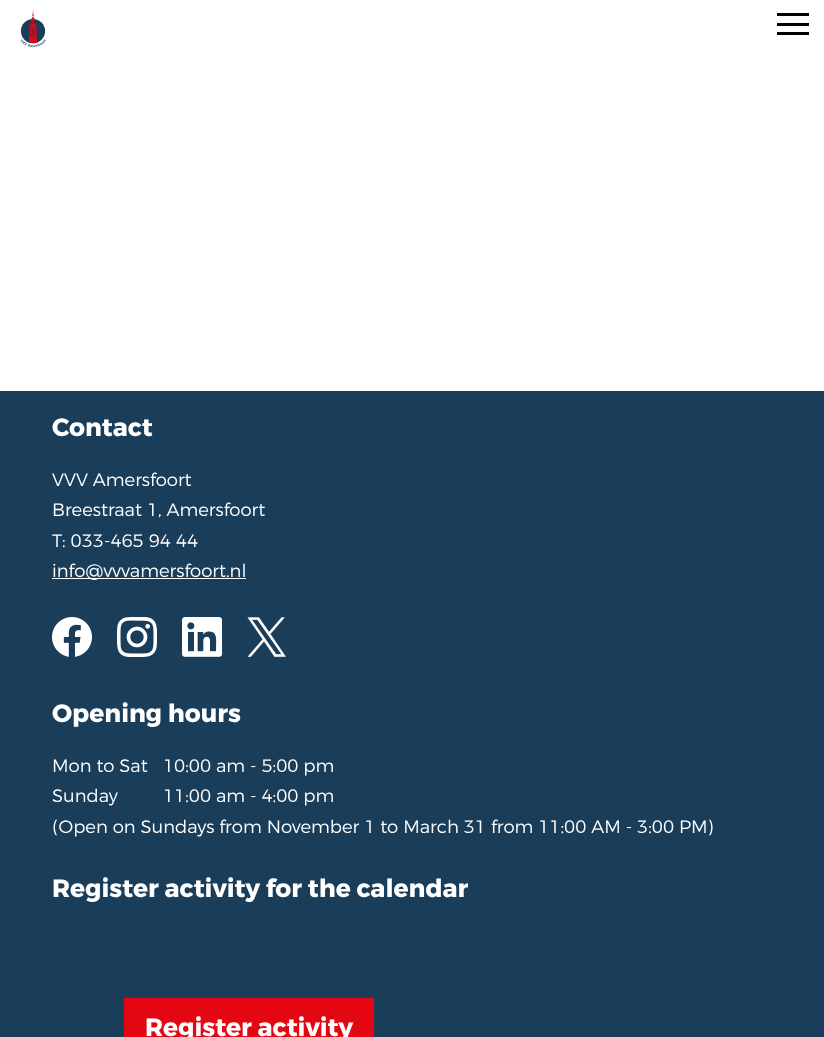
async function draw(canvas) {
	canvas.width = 824;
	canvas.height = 1037;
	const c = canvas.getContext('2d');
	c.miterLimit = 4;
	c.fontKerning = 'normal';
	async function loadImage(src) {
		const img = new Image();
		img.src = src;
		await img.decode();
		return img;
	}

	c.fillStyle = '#fff';
	c.fillRect(0, 0, 824, 1037);
	c.drawImage(await loadImage('img1.png'), 20, 9, 26, 39);
	for (const [x, y, w, h, color] of [
		[777, 13, 32, 3, '#000'],
		[777, 23, 32, 3, '#000'],
		[777, 32, 32, 3, '#000'],
		[0, 391, 824, 646, '#1a3d59'],
	]) {
		c.fillStyle = color;
		c.fillRect(x, y, w, h);
	}
	c.font = 'bold 25px Montserrat';
	c.fillStyle = '#fff';
	c.fillText('Contact', 52, 436);
	c.font = '300 18px Montserrat';
	for (const [text, x, y] of [
		['VVV Amersfoort', 52, 486],
		['Breestraat 1, Amersfoort', 52, 516],
		['T: 033-465 94 44', 52, 547],
	]) {
		c.fillText(text, x, y);
	}
	c.fillRect(52, 578, 194, 1);
	c.fillText('info@vvvamersfoort.nl', 52, 577);
	c.drawImage(await loadImage('img2.png'), 52, 617, 40, 40);
	c.drawImage(await loadImage('img3.png'), 117, 617, 40, 40);
	c.drawImage(await loadImage('img4.png'), 182, 617, 40, 40);
	c.drawImage(await loadImage('img5.png'), 247, 617, 39, 40);
	c.font = 'bold 25px Montserrat';
	c.fillText('Opening hours', 52, 722);
	c.font = '300 18px Montserrat';
	for (const [text, x, y] of [
		['Mon to Sat', 52, 772],
		['10:00 am - 5:00 pm', 163, 772],
		['Sunday', 52, 802],
		['11:00 am - 4:00 pm', 163, 802],
		['(Open on Sundays from November 1 to March 31 from 11:00 AM - 3:00 PM)', 52, 833],
	]) {
		c.fillText(text, x, y);
	}
	c.font = 'bold 25px Montserrat';
	c.fillText('Register activity for the calendar', 52, 897);
	c.fillStyle = '#e30613';
	c.fillRect(124, 998, 250, 39);
	c.fillStyle = '#fff';
	c.fillText('Register activity', 145, 1036);
}

draw(document.querySelector('canvas'));
